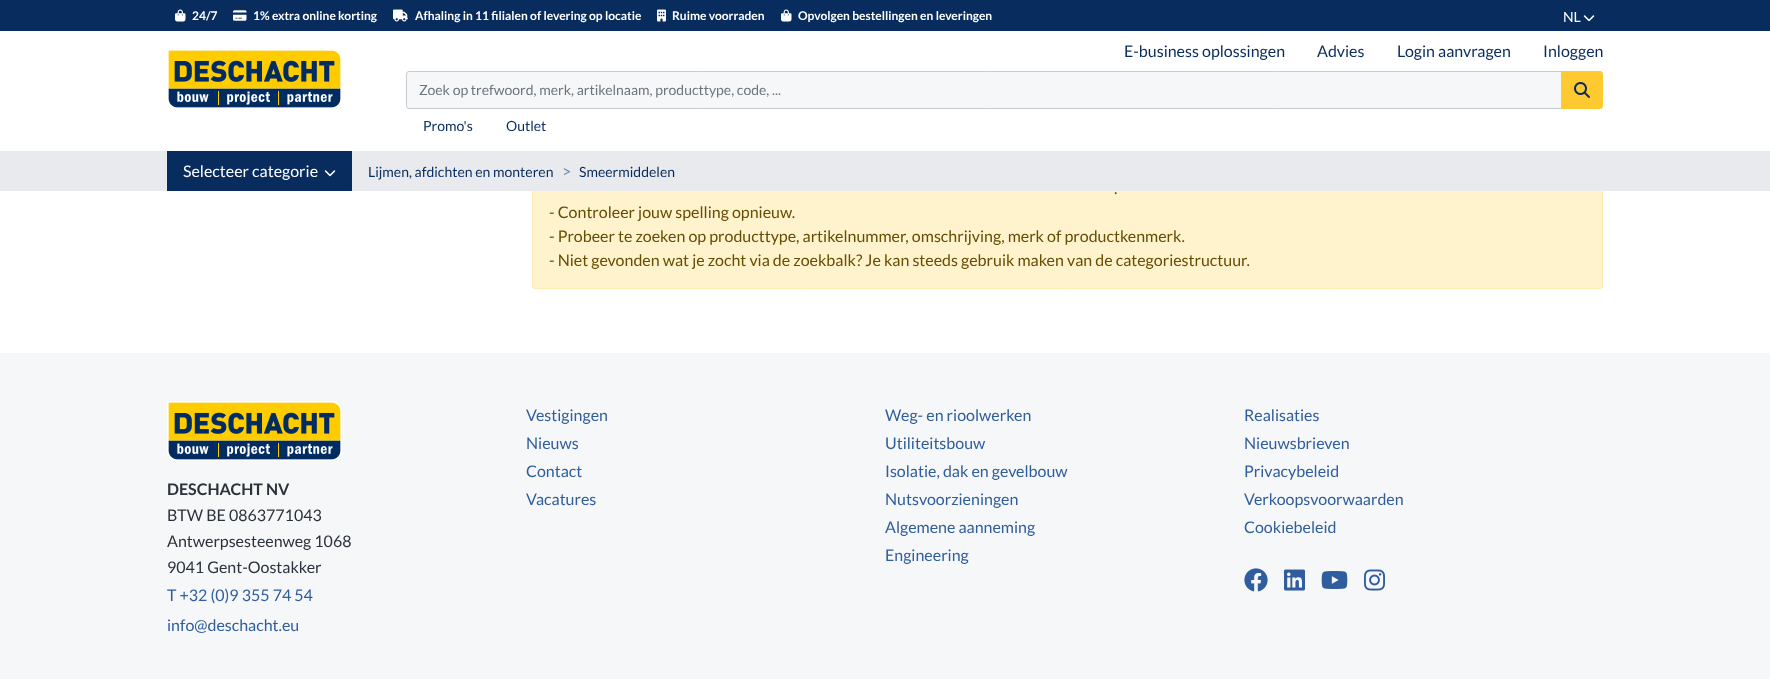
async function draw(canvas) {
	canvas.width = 1770;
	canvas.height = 679;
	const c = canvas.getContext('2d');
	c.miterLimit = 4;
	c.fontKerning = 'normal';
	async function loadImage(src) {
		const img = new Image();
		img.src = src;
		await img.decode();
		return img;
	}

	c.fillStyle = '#fff';
	c.fillRect(0, 0, 1770, 679);
	c.fillStyle = '#fff3cd';
	c.beginPath();
	c.roundRect(532.5, 63.5, 1070, 225, 2.5);
	c.fill();
	c.strokeStyle = '#ffecb5';
	c.stroke();
	c.fillStyle = '#fff';
	c.fillRect(532, 63, 1071, 88);
	c.fillStyle = '#082c5e';
	c.fillRect(0, 0, 1770, 31);
	c.drawImage(await loadImage('img1.png'), 175, 9, 11, 13);
	c.font = 'bold 12px Lato';
	c.fillStyle = '#fff';
	c.fillText('24/7', 192, 20);
	c.drawImage(await loadImage('img2.png'), 233, 10, 14, 11);
	c.fillText('1% extra online korting', 253, 20);
	c.drawImage(await loadImage('img3.png'), 393, 9, 15, 13);
	c.fillText('Afhaling in 11 filialen of levering op locatie', 415, 20);
	c.drawImage(await loadImage('img4.png'), 657, 9, 9, 13);
	c.fillText('Ruime voorraden', 672, 20);
	c.drawImage(await loadImage('img1.png'), 781, 9, 11, 13);
	c.fillText('Opvolgen bestellingen en leveringen', 798, 20);
	c.font = '14px Lato';
	c.fillText('NL', 1563, 22);
	c.drawImage(await loadImage('img5.png'), 1583, 15, 12, 7);
	c.drawImage(await loadImage('img6.png'), 168, 50, 173, 58);
	c.fillStyle = '#f6f7f8';
	c.beginPath();
	c.roundRect(406.5, 71.5, 1155, 37, [2.5, 0, 0, 2.5]);
	c.fill();
	c.strokeStyle = '#c7cbd1';
	c.stroke();
	c.fillStyle = '#6c757d';
	c.fillText('Zoek op trefwoord, merk, artikelnaam, producttype, code, ...', 419, 95);
	c.fillStyle = '#feca2f';
	c.beginPath();
	c.roundRect(1561.5, 71.5, 41, 37, [0, 2.5, 2.5, 0]);
	c.fill();
	c.strokeStyle = '#feca2f';
	c.stroke();
	c.drawImage(await loadImage('img7.png'), 1574, 82, 16, 16);
	c.font = '16px Lato';
	c.fillStyle = '#082c5e';
	for (const [text, x, y] of [
		['E-business oplossingen', 1124, 57],
		['Advies', 1317, 57],
		['Login aanvragen', 1397, 57],
		['Inloggen', 1543, 57],
	]) {
		c.fillText(text, x, y);
	}
	c.font = '14px Lato';
	c.fillText('Promo\'s', 423, 131);
	c.fillText('Outlet', 506, 131);
	c.fillStyle = '#e8eaed';
	c.fillRect(0, 151, 1770, 40);
	c.fillStyle = '#082c5e';
	c.fillRect(167, 151, 185, 40);
	c.font = '16px Lato';
	c.fillStyle = '#fff';
	c.fillText('Selecteer categorie', 183, 177);
	c.drawImage(await loadImage('img5.png'), 324, 170, 12, 7);
	c.font = '14px Lato';
	c.fillStyle = '#082c5e';
	c.fillText('Lijmen, afdichten en monteren', 368, 177);
	c.font = '16px Lato';
	c.fillStyle = '#738eb5';
	c.fillText('>', 562, 177);
	c.font = '14px Lato';
	c.fillStyle = '#082c5e';
	c.fillText('Smeermiddelen', 579, 177);
	c.font = '16px Lato';
	c.fillStyle = '#664d03';
	for (const [text, x, y] of [
		['.', 1114, 194],
		['- Controleer jouw spelling opnieuw.', 549, 218],
		['- Probeer te zoeken op producttype, artikelnummer, omschrijving, merk of productkenmerk.', 549, 242],
		['- Niet gevonden wat je zocht via de zoekbalk? Je kan steeds gebruik maken van de categoriestructuur.', 549, 266],
	]) {
		c.fillText(text, x, y);
	}
	c.fillStyle = '#f6f7f8';
	c.fillRect(0, 353, 1770, 326);
	c.drawImage(await loadImage('img8.png'), 167, 401, 175, 60);
	c.font = 'bold 16px Lato';
	c.fillStyle = '#2b323b';
	c.fillText('DESCHACHT NV', 167, 495);
	c.font = '16px Lato';
	for (const [text, x, y] of [
		['BTW BE 0863771043', 167, 521],
		['Antwerpsesteenweg 1068', 167, 547],
		['9041 Gent-Oostakker', 167, 573],
	]) {
		c.fillText(text, x, y);
	}
	c.fillStyle = '#2f5d9d';
	for (const [text, x, y] of [
		['T +32 (0)9 355 74 54', 167, 601],
		['info@deschacht.eu', 167, 631],
		['Vestigingen', 526, 421],
		['Nieuws', 526, 449],
		['Contact', 526, 477],
		['Vacatures', 526, 505],
		['Weg- en rioolwerken', 885, 421],
		['Utiliteitsbouw', 885, 449],
		['Isolatie, dak en gevelbouw', 885, 477],
		['Nutsvoorzieningen', 885, 505],
		['Algemene aanneming', 885, 533],
		['Engineering', 885, 561],
		['Realisaties', 1244, 421],
		['Nieuwsbrieven', 1244, 449],
		['Privacybeleid', 1244, 477],
		['Verkoopsvoorwaarden', 1244, 505],
		['Cookiebeleid', 1244, 533],
	]) {
		c.fillText(text, x, y);
	}
	c.drawImage(await loadImage('img9.png'), 1244, 568, 24, 24);
	c.drawImage(await loadImage('img10.png'), 1284, 569, 21, 22);
	c.drawImage(await loadImage('img11.png'), 1321, 571, 27, 18);
	c.drawImage(await loadImage('img12.png'), 1364, 569, 21, 22);
}

draw(document.querySelector('canvas'));
